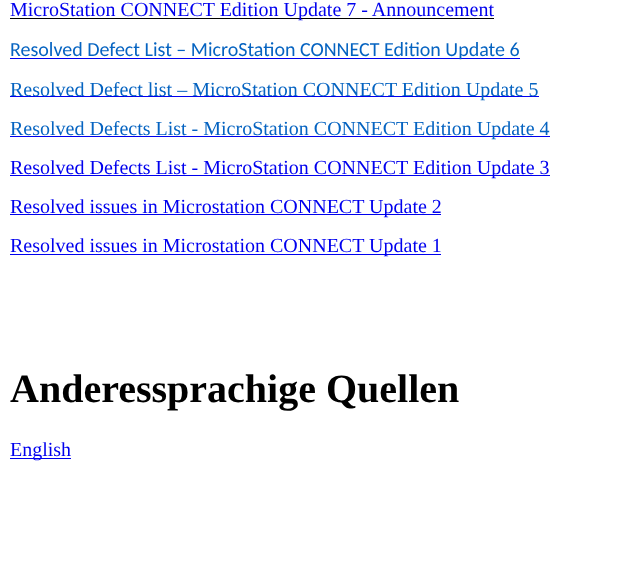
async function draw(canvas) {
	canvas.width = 642;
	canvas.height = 565;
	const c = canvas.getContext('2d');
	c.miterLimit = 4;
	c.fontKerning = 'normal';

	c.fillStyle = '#fff';
	c.fillRect(0, 0, 642, 565);
	c.fillStyle = '#000';
	c.fillRect(10, 18, 484, 1);
	c.font = '20px Liberation Serif';
	c.fillStyle = '#00e';
	c.fillText('MicroStation CONNECT Edition Update 7 - Announcement', 10, 16);
	c.fillRect(10, 58, 510, 1);
	c.font = '20px Carlito';
	c.fillStyle = '#0563c1';
	c.fillText('Resolved Defect List – MicroStation CONNECT Edition Update 6', 10, 56);
	c.fillStyle = '#00e';
	c.fillRect(10, 96, 529, 1);
	c.font = '20px Liberation Serif';
	c.fillStyle = '#0563c1';
	c.fillText('Resolved Defect list – MicroStation CONNECT Edition Update 5', 10, 96);
	c.fillStyle = '#00e';
	c.fillRect(10, 136, 540, 1);
	c.fillStyle = '#0563c1';
	c.fillText('Resolved Defects List - MicroStation CONNECT Edition Update 4', 10, 135);
	c.fillStyle = '#00e';
	c.fillRect(10, 175, 540, 1);
	c.fillText('Resolved Defects List - MicroStation CONNECT Edition Update 3', 10, 174);
	c.fillRect(10, 214, 431, 1);
	c.fillText('Resolved issues in Microstation CONNECT Update 2', 10, 213);
	c.fillRect(10, 254, 431, 1);
	c.fillText('Resolved issues in Microstation CONNECT Update 1', 10, 252);
	c.font = 'bold 40px Liberation Serif';
	c.fillStyle = '#000';
	c.fillText('Anderessprachige Quellen', 10, 402);
	c.fillStyle = '#00e';
	c.fillRect(10, 458, 61, 1);
	c.font = '20px Liberation Serif';
	c.fillText('English', 10, 456);
}

draw(document.querySelector('canvas'));
